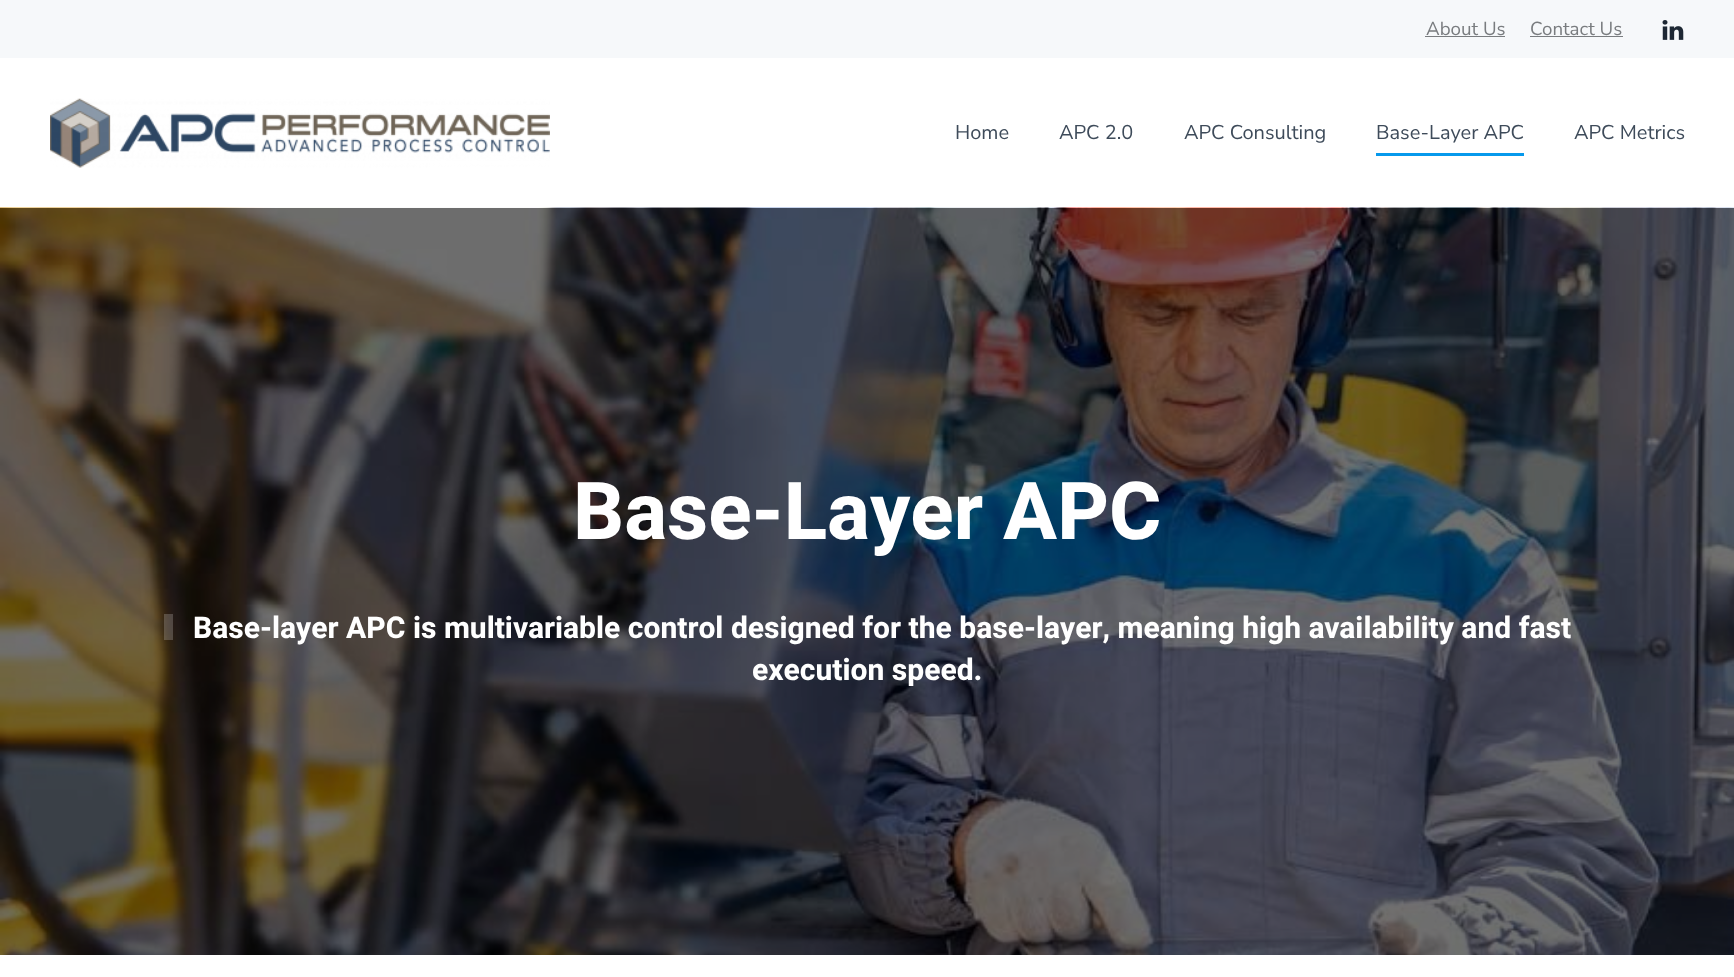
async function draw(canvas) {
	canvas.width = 1734;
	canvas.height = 977;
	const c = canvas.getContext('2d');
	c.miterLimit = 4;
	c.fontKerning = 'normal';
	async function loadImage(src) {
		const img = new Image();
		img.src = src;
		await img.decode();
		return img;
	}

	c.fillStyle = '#fff';
	c.fillRect(0, 0, 1734, 977);
	c.fillStyle = '#f6f8fa';
	c.fillRect(0, 0, 1734, 58);
	c.font = '18.75px Nunito Sans';
	c.fillStyle = '#797c7f';
	c.fillText('About Us', 1426, 35);
	c.fillRect(1425, 36, 80, 1);
	c.fillText('Contact Us', 1530, 35);
	c.fillRect(1530, 36, 93, 1);
	c.drawImage(await loadImage('img1.png'), 1662, 20, 22, 20);
	c.drawImage(await loadImage('img2.png'), 50, 98, 500, 70);
	c.font = '20px Nunito Sans';
	c.fillStyle = '#3e4b5a';
	for (const [text, x, y] of [
		['Home', 955, 139],
		['APC 2.0', 1059, 139],
		['APC Consulting', 1184, 139],
		['Base-Layer APC', 1376, 139],
	]) {
		c.fillText(text, x, y);
	}
	c.fillStyle = '#0699ec';
	c.fillRect(1376, 153, 148, 3);
	c.fillStyle = '#3e4b5a';
	c.fillText('APC Metrics', 1574, 139);
	c.drawImage(await loadImage('img3.png'), 0, 207, 1734, 748);
	c.font = 'bold 80px Heebo';
	c.fillStyle = '#fff';
	c.fillText('Base-Layer APC', 573, 539);
	c.fillStyle = '#ffffff33';
	c.fillRect(164, 614, 9, 26);
	c.font = 'bold 30px Heebo';
	c.fillStyle = '#fff';
	c.fillText('Base-layer APC is multivariable control designed for the base-layer, meaning high availability and fast', 193, 638);
	c.fillText('execution speed.', 752, 680);
}

draw(document.querySelector('canvas'));
